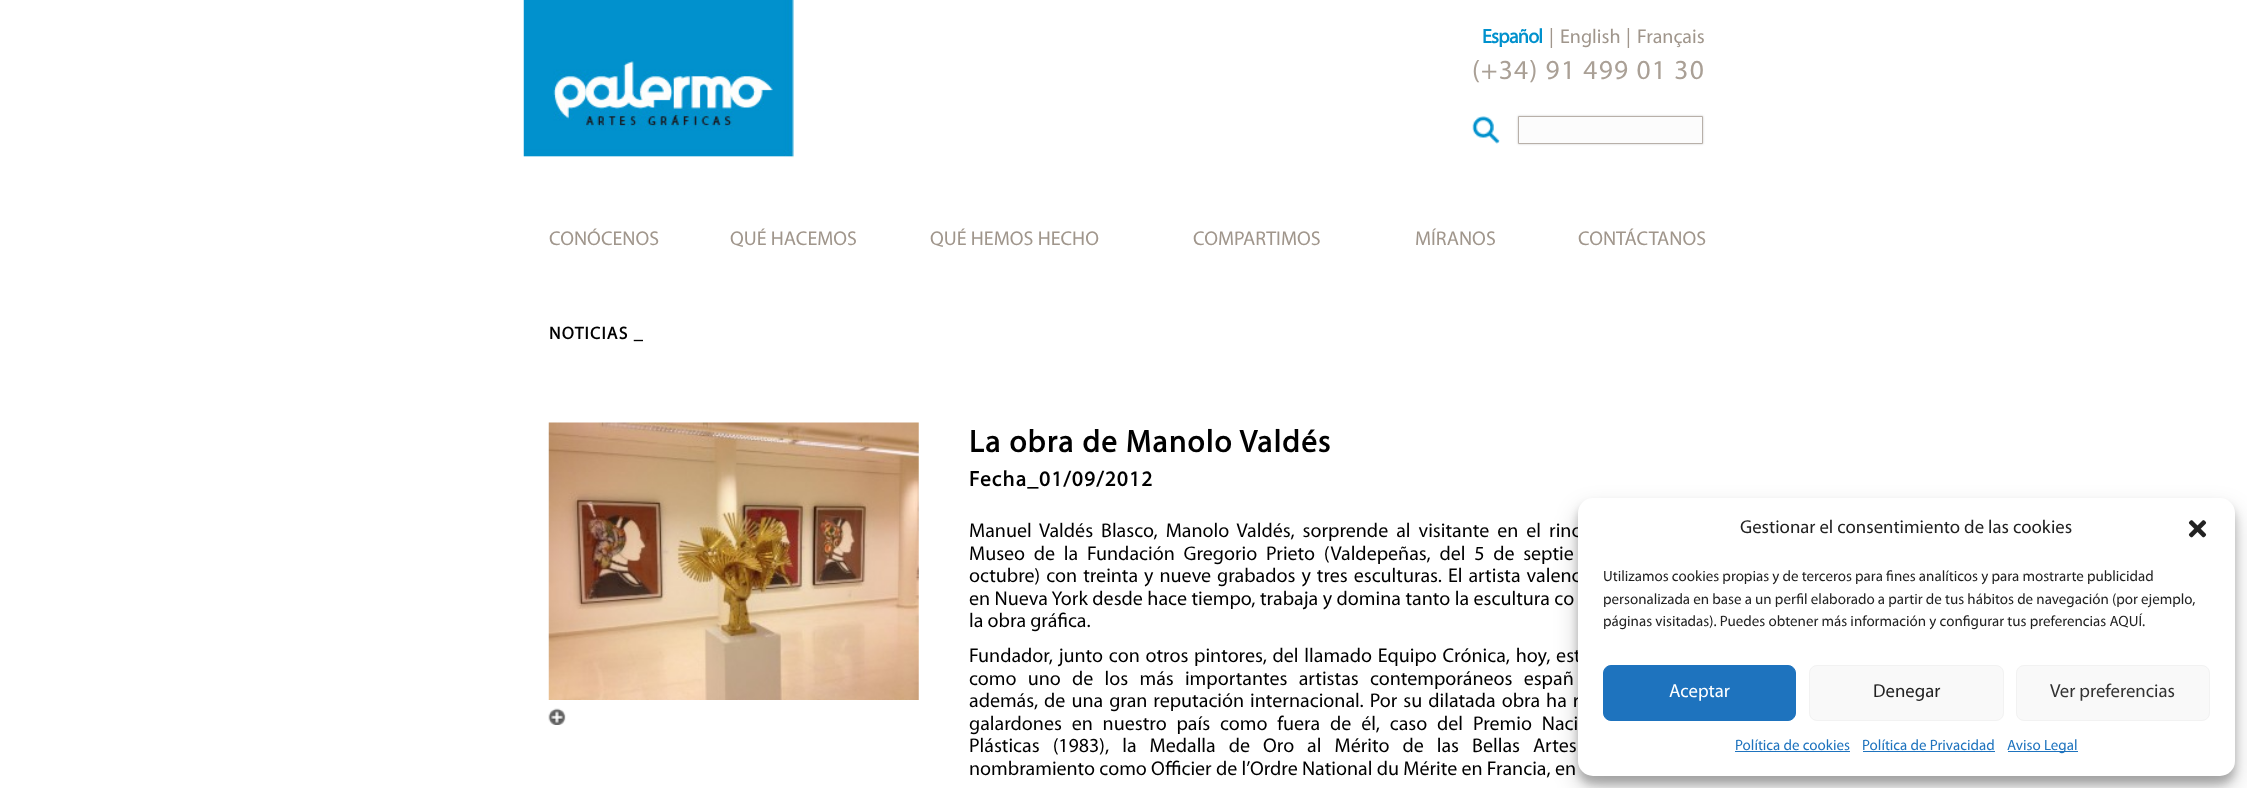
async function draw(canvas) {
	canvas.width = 2247;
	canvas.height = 788;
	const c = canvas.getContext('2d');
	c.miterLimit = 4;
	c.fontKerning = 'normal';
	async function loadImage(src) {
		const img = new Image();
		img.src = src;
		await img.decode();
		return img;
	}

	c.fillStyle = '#fff';
	c.fillRect(0, 0, 2247, 788);
	c.drawImage(await loadImage('img1.png'), 523, 0, 271, 158);
	c.letterSpacing = '-0.75px';
	c.font = 'bold 20px Myriad';
	c.fillStyle = '#0091cd';
	c.fillText('Español', 1482, 43);
	c.letterSpacing = '0px';
	c.font = '20px Myriad';
	c.fillStyle = '#a0968c';
	for (const [text, x, y] of [
		['|', 1549, 43],
		['English', 1560, 43],
		['|', 1626, 43],
		['Français', 1637, 43],
	]) {
		c.fillText(text, x, y);
	}
	c.letterSpacing = '1.25px';
	c.font = '27.5px Myriad';
	c.fillStyle = '#aaa096';
	c.fillText('(+34) 91 499 01 30', 1472, 79);
	c.drawImage(await loadImage('img2.png'), 1472, 116, 28, 28);
	c.fillStyle = '#ccc';
	c.filter = 'blur(1px)';
	c.beginPath();
	c.rect(1518, 116, 185, 28);
	c.fill();
	c.filter = 'none';
	c.fillStyle = '#fcfcfc';
	c.beginPath();
	c.rect(1518.5, 116.5, 184, 27);
	c.fill();
	c.strokeStyle = '#b8b0a9';
	c.stroke();
	c.letterSpacing = '0px';
	c.font = '20px Myriad';
	c.fillStyle = '#a0968c';
	for (const [text, x, y] of [
		['CONÓCENOS', 549, 245],
		['QUÉ HACEMOS', 730, 245],
		['QUÉ HEMOS HECHO', 930, 245],
		['COMPARTIMOS', 1193, 245],
		['MÍRANOS', 1415, 245],
		['CONTÁCTANOS', 1578, 245],
	]) {
		c.fillText(text, x, y);
	}
	c.letterSpacing = '1.25px';
	c.font = 'bold 17.5px Myriad';
	c.fillStyle = '#000';
	c.fillText('NOTICIAS _', 549, 339);
	c.drawImage(await loadImage('img3.png'), 548, 708, 18, 17);
	c.drawImage(await loadImage('img4.png'), 548, 422, 371, 278);
	c.font = 'bold 31.25px Myriad';
	c.fillText('La obra de Manolo Valdés', 969, 452);
	c.font = 'bold 21.25px Myriad';
	c.fillText('Fecha_01/09/2012', 969, 486);
	c.letterSpacing = '0px';
	c.wordSpacing = '3.75px';
	c.font = '20px Myriad';
	c.fillText('Manuel Valdés Blasco, Manolo Valdés, sorprende al visitante en el rinc', 969, 537);
	c.wordSpacing = '4.5px';
	c.fillText('Museo de la Fundación Gregorio Prieto (Valdepeñas, del 5 de septie', 969, 560);
	c.wordSpacing = '1.75px';
	c.fillText('octubre) con treinta y nueve grabados y tres esculturas. El artista valenc', 969, 582);
	c.wordSpacing = '0.25px';
	c.fillText('en Nueva York desde hace tiempo, trabaja y domina tanto la escultura co', 969, 605);
	c.wordSpacing = '0px';
	c.fillText('la obra gráfica.', 969, 627);
	c.wordSpacing = '1.5px';
	c.fillText('Fundador, junto con otros pintores, del llamado Equipo Crónica, hoy, est', 969, 662);
	c.wordSpacing = '7px';
	c.fillText('como uno de los más importantes artistas contemporáneos españ', 969, 685);
	c.wordSpacing = '1.75px';
	c.fillText('además, de una gran reputación internacional. Por su dilatada obra ha r', 969, 707);
	c.wordSpacing = '5.6px';
	c.fillText('galardones en nuestro país como fuera de él, caso del Premio Naci', 969, 730);
	c.wordSpacing = '8.75px';
	c.fillText('Plásticas (1983), la Medalla de Oro al Mérito de las Bellas Artes', 969, 752);
	c.wordSpacing = '0px';
	c.fillText('nombramiento como Officier de l’Ordre National du Mérite en Francia, en', 969, 775);
	c.fillStyle = '#0000003b';
	c.filter = 'blur(4px)';
	c.beginPath();
	c.roundRect(1578, 505, 657, 279, 15);
	c.fill();
	c.filter = 'none';
	c.fillStyle = '#00000030';
	c.filter = 'blur(12.5px)';
	c.beginPath();
	c.roundRect(1578, 510, 657, 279, 15);
	c.fill();
	c.filter = 'none';
	c.fillStyle = '#fff';
	c.beginPath();
	c.roundRect(1578, 498, 657, 278, 15);
	c.fill();
	c.font = '18.75px Myriad';
	c.fillStyle = '#222';
	c.fillText('Gestionar el consentimiento de las cookies', 1740, 533);
	c.drawImage(await loadImage('img5.png'), 2188, 520, 19, 18);
	c.font = '15px Myriad';
	for (const [text, x, y] of [
		['Utilizamos cookies propias y de terceros para fines analíticos y para mostrarte publicidad', 1603, 581],
		['personalizada en base a un perfil elaborado a partir de tus hábitos de navegación (por ejemplo,', 1603, 604],
		['páginas visitadas). Puedes obtener más información y configurar tus preferencias AQUÍ.', 1603, 626],
	]) {
		c.fillText(text, x, y);
	}
	c.fillStyle = '#1e73be';
	c.beginPath();
	c.roundRect(1603.5, 665.5, 192, 55, 7.5);
	c.fill();
	c.strokeStyle = '#1e73be';
	c.stroke();
	c.font = '18.75px Myriad';
	c.fillStyle = '#fff';
	c.fillText('Aceptar', 1669, 697);
	c.fillStyle = '#f9f9f9';
	c.beginPath();
	c.roundRect(1809.5, 665.5, 194, 55, 7.5);
	c.fill();
	c.strokeStyle = '#f2f2f2';
	c.stroke();
	c.fillStyle = '#222';
	c.fillText('Denegar', 1873, 697);
	c.fillStyle = '#f9f9f9';
	c.beginPath();
	c.roundRect(2016.5, 665.5, 193, 55, 7.5);
	c.fill();
	c.stroke();
	c.fillStyle = '#333';
	c.fillText('Ver preferencias', 2050, 697);
	c.font = '15px Myriad';
	c.fillStyle = '#1e73be';
	c.fillText('Política de cookies', 1735, 750);
	c.fillRect(1735, 751, 115, 1);
	c.fillText('Política de Privacidad', 1862, 750);
	c.fillRect(1863, 751, 132, 1);
	c.fillRect(2008, 751, 70, 1);
	c.fillText('Aviso Legal', 2007, 750);
}

draw(document.querySelector('canvas'));
